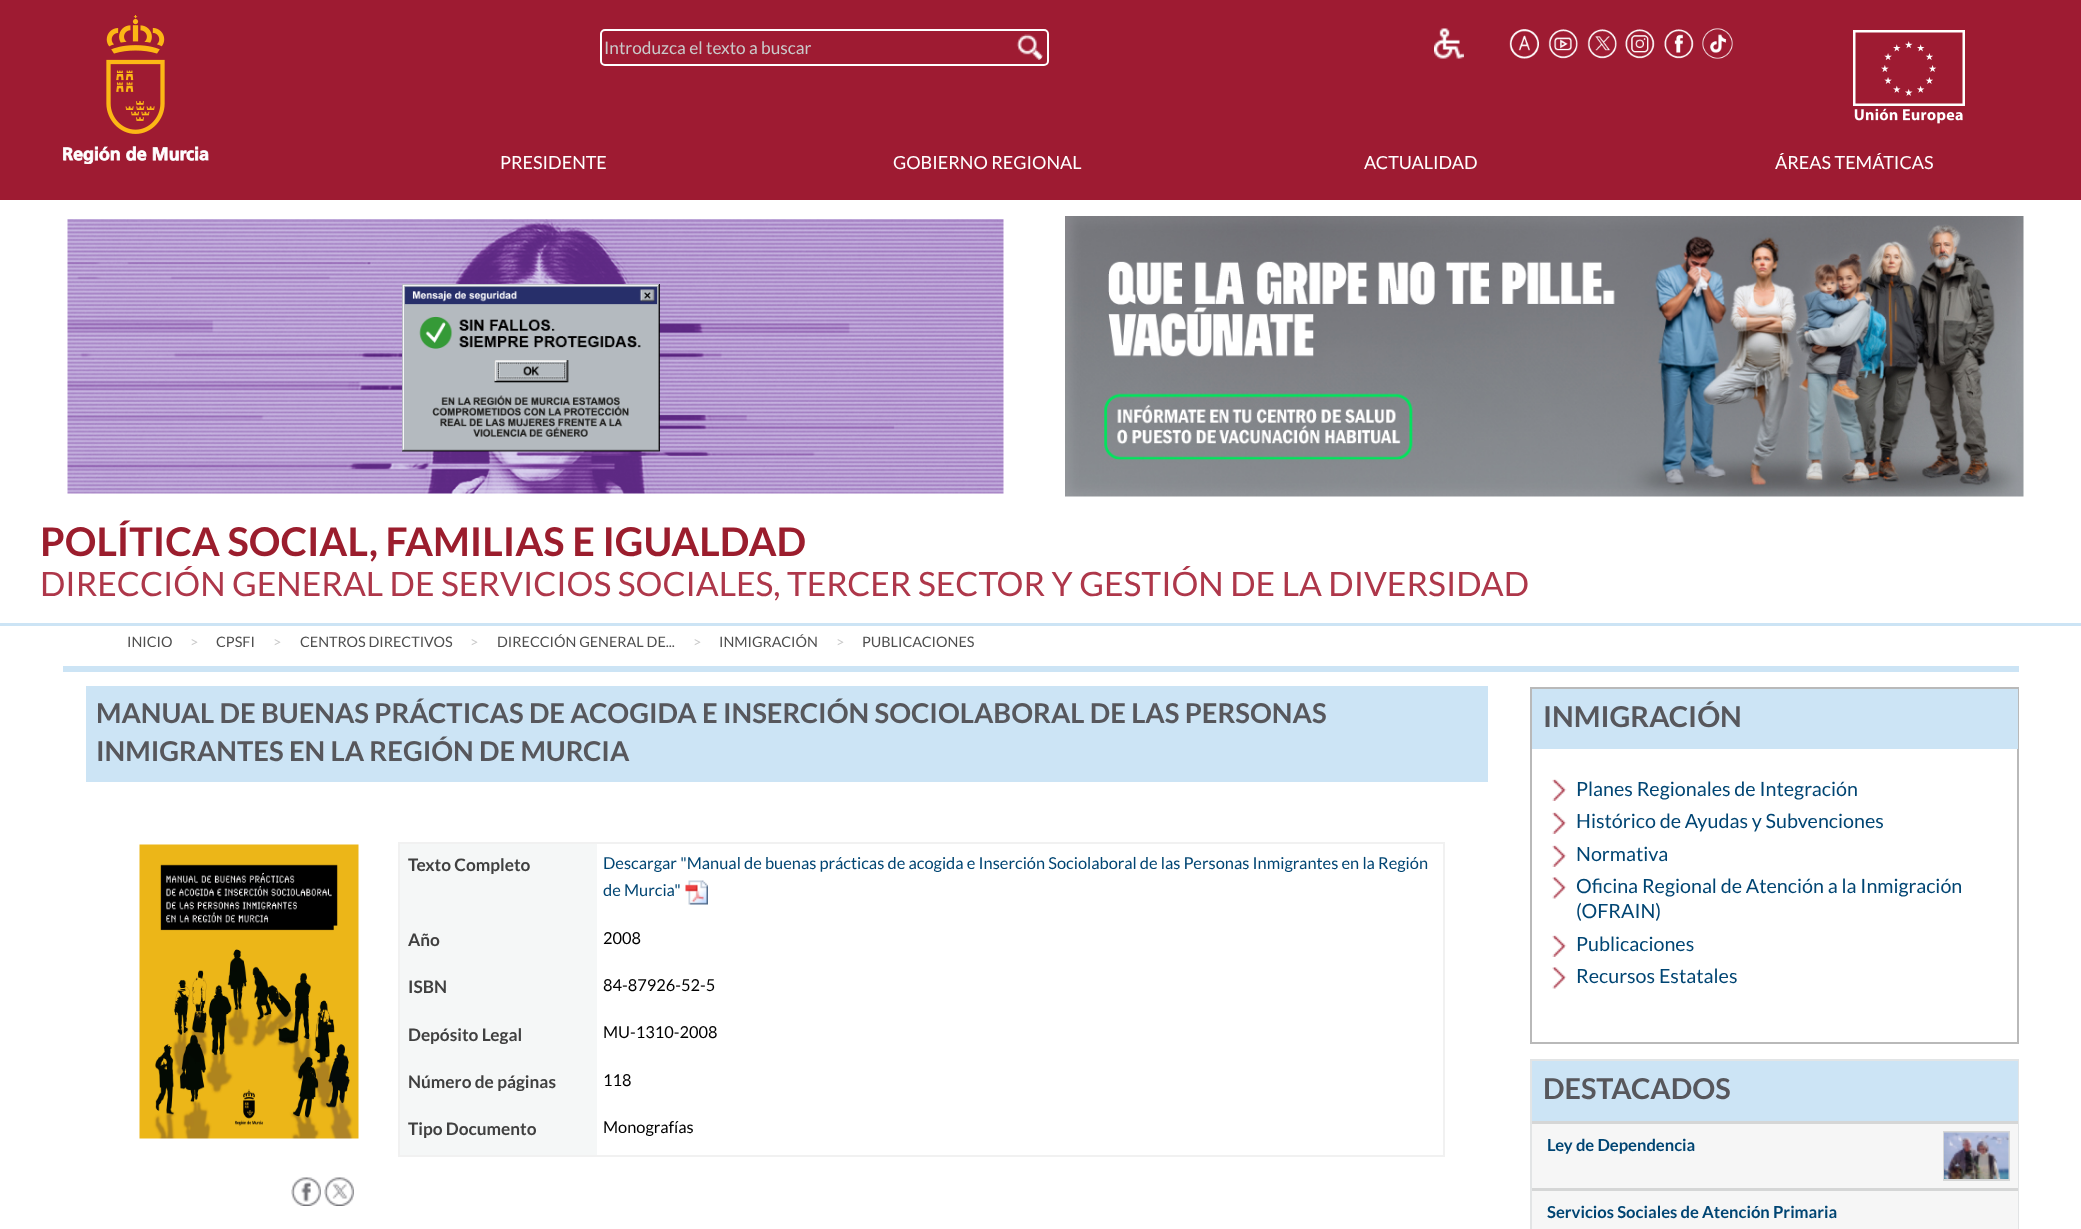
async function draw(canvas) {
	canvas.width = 2081;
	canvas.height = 1229;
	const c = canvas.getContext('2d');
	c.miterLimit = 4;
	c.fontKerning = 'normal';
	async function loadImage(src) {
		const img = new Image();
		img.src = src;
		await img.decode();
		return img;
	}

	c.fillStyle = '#fff';
	c.fillRect(0, 0, 2081, 1229);
	c.fillStyle = '#9e1b32';
	c.fillRect(0, 0, 2081, 200);
	c.drawImage(await loadImage('img1.png'), 63, 15, 146, 149);
	c.beginPath();
	c.roundRect(601, 30, 447, 35, 4);
	c.strokeStyle = '#fff';
	c.lineWidth = 2;
	c.stroke();
	c.font = '17.25px Lato';
	c.fillStyle = '#cacaca';
	c.fillText('Introduzca el texto a buscar', 604, 54);
	c.drawImage(await loadImage('img2.png'), 1016, 34, 27, 26);
	c.drawImage(await loadImage('img3.png'), 1434, 28, 30, 31);
	c.drawImage(await loadImage('img4.png'), 1509, 29, 30, 30);
	c.drawImage(await loadImage('img5.png'), 1548, 29, 30, 30);
	c.drawImage(await loadImage('img6.png'), 1587, 29, 30, 30);
	c.drawImage(await loadImage('img7.png'), 1625, 29, 30, 30);
	c.drawImage(await loadImage('img8.png'), 1664, 29, 30, 30);
	c.drawImage(await loadImage('img9.png'), 1702, 28, 31, 31);
	c.drawImage(await loadImage('img10.png'), 1853, 30, 112, 94);
	c.font = '18px Lato';
	c.fillStyle = '#fff';
	for (const [text, x, y] of [
		['PRESIDENTE', 500, 169],
		['GOBIERNO REGIONAL', 893, 169],
		['ACTUALIDAD', 1364, 169],
		['ÁREAS TEMÁTICAS', 1775, 169],
	]) {
		c.fillText(text, x, y);
	}
	c.drawImage(await loadImage('img11.png'), 67, 219, 937, 275);
	c.drawImage(await loadImage('img12.png'), 1065, 216, 959, 281);
	c.fillStyle = '#cce4f5';
	c.fillRect(0, 623, 2081, 3);
	c.font = 'bold 39.6px Lato';
	c.fillStyle = '#9b1d2d';
	c.fillText('POLÍTICA SOCIAL, FAMILIAS E IGUALDAD', 40, 556);
	c.font = '33.65px Lato';
	c.fillStyle = '#ae374a';
	c.fillText('DIRECCIÓN GENERAL DE SERVICIOS SOCIALES, TERCER SECTOR Y GESTIÓN DE LA DIVERSIDAD', 40, 596);
	c.font = '14.4px Lato';
	c.fillStyle = '#4e4e4e';
	c.fillText('INICIO', 127, 647);
	c.fillStyle = '#cacaca';
	c.fillText('>', 190, 647);
	c.fillStyle = '#4e4e4e';
	c.fillText('CPSFI', 216, 647);
	c.fillStyle = '#cacaca';
	c.fillText('>', 273, 647);
	c.fillStyle = '#4e4e4e';
	c.fillText('CENTROS DIRECTIVOS', 300, 647);
	c.fillStyle = '#cacaca';
	c.fillText('>', 470, 647);
	c.fillStyle = '#4e4e4e';
	c.fillText('DIRECCIÓN GENERAL DE...', 497, 647);
	c.fillStyle = '#cacaca';
	c.fillText('>', 693, 647);
	c.fillStyle = '#4e4e4e';
	c.fillText('INMIGRACIÓN', 719, 647);
	c.fillStyle = '#cacaca';
	c.fillText('>', 836, 647);
	c.fillStyle = '#4e4e4e';
	c.fillText('PUBLICACIONES', 862, 647);
	c.fillStyle = '#cce4f5';
	c.fillRect(63, 666, 1956, 6);
	c.fillRect(86, 686, 1402, 96);
	c.font = 'bold 27.35px Lato';
	c.fillStyle = '#57575c';
	c.fillText('MANUAL DE BUENAS PRÁCTICAS DE ACOGIDA E INSERCIÓN SOCIOLABORAL DE LAS PERSONAS', 96, 723);
	c.fillText('INMIGRANTES EN LA REGIÓN DE MURCIA', 96, 761);
	c.drawImage(await loadImage('img13.png'), 139, 844, 220, 295);
	c.drawImage(await loadImage('img14.png'), 291, 1177, 30, 29);
	c.drawImage(await loadImage('img15.png'), 324, 1177, 30, 29);
	for (const [x, y, w, h, color] of [
		[398, 842, 1047, 2, '#f1f1f1'],
		[1443, 842, 2, 315, '#f1f1f1'],
		[398, 1155, 1047, 2, '#f1f1f1'],
		[398, 842, 2, 315, '#f1f1f1'],
		[400, 844, 197, 311, '#f5f7f7'],
	]) {
		c.fillStyle = color;
		c.fillRect(x, y, w, h);
	}
	c.font = 'bold 17.25px Lato';
	c.fillStyle = '#404040';
	c.fillText('Texto Completo', 408, 871);
	c.font = '16.42px Lato';
	c.fillStyle = '#004573';
	c.fillText('Descargar "Manual de buenas prácticas de acogida e Inserción Sociolaboral de las Personas Inmigrantes en la Región', 603, 869);
	c.fillText('de Murcia"', 603, 896);
	c.drawImage(await loadImage('img16.png'), 685, 880, 23, 25);
	c.font = 'bold 17.25px Lato';
	c.fillStyle = '#404040';
	c.fillText('Año', 408, 946);
	c.font = '16.42px Lato';
	c.fillStyle = '#000';
	c.fillText('2008', 603, 944);
	c.font = 'bold 17.25px Lato';
	c.fillStyle = '#404040';
	c.fillText('ISBN', 408, 993);
	c.font = '16.42px Lato';
	c.fillStyle = '#000';
	c.fillText('84-87926-52-5', 603, 991);
	c.font = 'bold 17.25px Lato';
	c.fillStyle = '#404040';
	c.fillText('Depósito Legal', 408, 1041);
	c.font = '16.42px Lato';
	c.fillStyle = '#000';
	c.fillText('MU-1310-2008', 603, 1038);
	c.font = 'bold 17.25px Lato';
	c.fillStyle = '#404040';
	c.fillText('Número de páginas', 408, 1088);
	c.font = '16.42px Lato';
	c.fillStyle = '#000';
	c.fillText('118', 603, 1086);
	c.font = 'bold 17.25px Lato';
	c.fillStyle = '#404040';
	c.fillText('Tipo Documento', 408, 1135);
	c.font = '16.42px Lato';
	c.fillStyle = '#000';
	c.fillText('Monografías', 603, 1133);
	c.strokeStyle = '#b9b9b9';
	c.strokeRect(1531, 688, 487, 355);
	c.fillStyle = '#cce4f5';
	c.fillRect(1532, 689, 486, 60);
	c.font = 'bold 28.75px Lato';
	c.fillStyle = '#57575c';
	c.fillText('INMIGRACIÓN', 1543, 727);
	c.drawImage(await loadImage('img17.png'), 1552, 779, 15, 22);
	c.font = '19.7px Lato';
	c.fillStyle = '#004573';
	c.fillText('Planes Regionales de Integración', 1576, 796);
	c.drawImage(await loadImage('img17.png'), 1552, 812, 15, 22);
	c.fillText('Histórico de Ayudas y Subvenciones', 1576, 828);
	c.drawImage(await loadImage('img17.png'), 1552, 845, 15, 22);
	c.fillText('Normativa', 1576, 861);
	c.drawImage(await loadImage('img18.png'), 1552, 877, 15, 22);
	c.fillText('Oficina Regional de Atención a la Inmigración', 1576, 893);
	c.fillText('(OFRAIN)', 1576, 918);
	c.drawImage(await loadImage('img17.png'), 1552, 935, 15, 22);
	c.fillText('Publicaciones', 1576, 951);
	c.drawImage(await loadImage('img18.png'), 1552, 967, 15, 22);
	c.fillText('Recursos Estatales', 1576, 983);
	c.strokeStyle = '#e2e4e5';
	c.strokeRect(1531, 1060, 487, 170);
	c.fillStyle = '#cce4f5';
	c.fillRect(1532, 1061, 486, 60);
	c.font = 'bold 28.75px Lato';
	c.fillStyle = '#57575c';
	c.fillText('DESTACADOS', 1543, 1099);
	c.fillStyle = '#f6f6f6';
	c.fillRect(1532, 1124, 486, 105);
	c.fillStyle = '#d5d6d6';
	c.fillRect(1532, 1121, 486, 3);
	c.font = 'bold 16.6px Lato';
	c.fillStyle = '#004573';
	c.fillText('Ley de Dependencia', 1547, 1151);
	c.strokeStyle = '#d5d6d6';
	c.strokeRect(1944, 1132, 65, 48);
	c.drawImage(await loadImage('img19.png'), 1944, 1132, 65, 47);
	c.fillStyle = '#d5d6d6';
	c.fillRect(1532, 1188, 486, 3);
	c.fillStyle = '#004573';
	c.fillText('Servicios Sociales de Atención Primaria', 1547, 1218);
}

draw(document.querySelector('canvas'));
